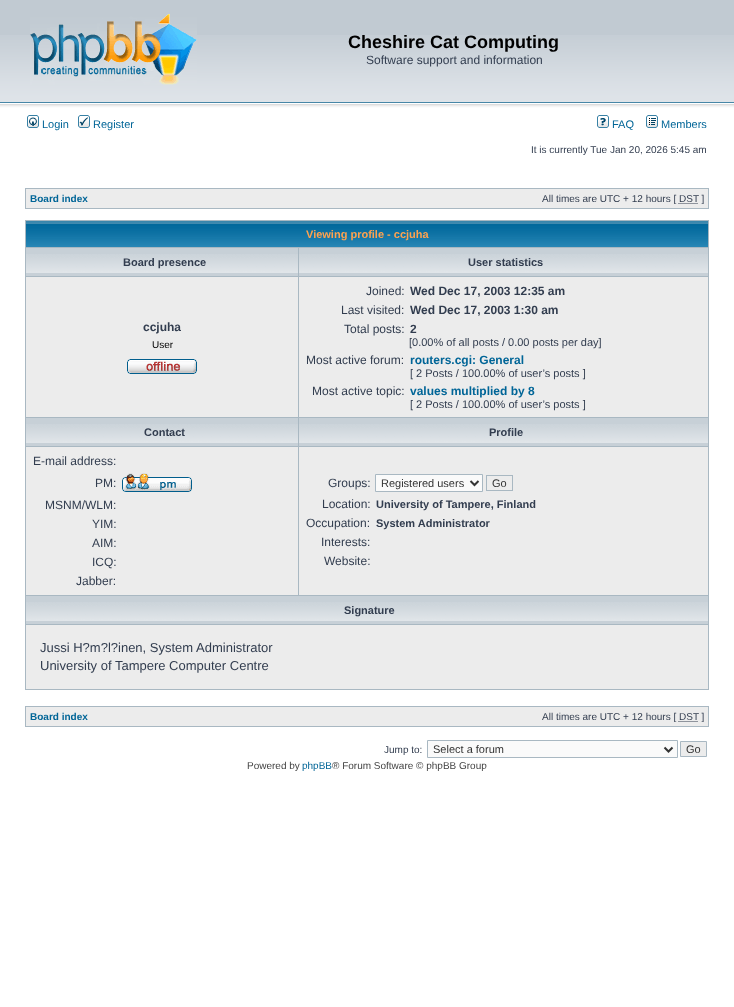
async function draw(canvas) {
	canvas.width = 734;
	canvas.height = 1007;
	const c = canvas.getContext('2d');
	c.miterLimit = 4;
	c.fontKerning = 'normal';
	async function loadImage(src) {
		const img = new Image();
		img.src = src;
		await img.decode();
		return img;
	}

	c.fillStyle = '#fff';
	c.fillRect(0, 0, 734, 1007);
	c.fillStyle = '#c1cad2';
	c.fillRect(0, 0, 734, 35);
	c.drawImage(await loadImage('img1.png'), 0, 35, 734, 78);
	c.drawImage(await loadImage('img2.png'), 30, 14, 167, 71);
	c.font = 'bold 18px Liberation Sans';
	c.fillStyle = '#000';
	c.fillText('Cheshire Cat Computing', 348, 48);
	c.font = '12px Liberation Sans';
	c.fillStyle = '#323d4f';
	c.fillText('Software support and information', 366, 64);
	c.drawImage(await loadImage('img3.png'), 27, 115, 12, 13);
	c.font = '11px Liberation Sans';
	c.fillStyle = '#006597';
	c.fillText('Login', 42, 128);
	c.drawImage(await loadImage('img4.png'), 78, 115, 12, 13);
	c.fillText('Register', 93, 128);
	c.drawImage(await loadImage('img5.png'), 597, 115, 12, 13);
	c.fillText('FAQ', 612, 128);
	c.drawImage(await loadImage('img6.png'), 646, 115, 12, 13);
	c.fillText('Members', 661, 128);
	c.font = '10px Liberation Sans';
	c.fillStyle = '#323d4f';
	c.fillText('It is currently Tue Jan 20, 2026 5:45 am', 531, 153);
	c.fillStyle = '#a9b8c2';
	c.fillRect(25, 188, 684, 21);
	c.fillStyle = '#ececec';
	c.fillRect(26, 189, 682, 19);
	c.font = 'bold 10px Liberation Sans';
	c.fillStyle = '#006597';
	c.fillText('Board index', 30, 202);
	c.font = '10px Liberation Sans';
	c.fillStyle = '#323d4f';
	c.fillText('All times are UTC + 12 hours [ DST ]', 542, 202);
	c.beginPath();
	c.moveTo(678.5, 203.5);
	c.lineTo(698.5, 203.5);
	c.strokeStyle = '#323d4f';
	c.setLineDash([1, 1]);
	c.stroke();
	c.fillStyle = '#a9b8c2';
	c.fillRect(25, 220, 684, 470);
	c.drawImage(await loadImage('img7.png'), 26, 221, 682, 26);
	c.font = 'bold 11px Liberation Sans';
	c.fillStyle = '#ffa34f';
	c.fillText('Viewing profile - ccjuha', 306, 238);
	c.fillStyle = '#c7d0d7';
	c.fillRect(26, 248, 272, 28);
	c.drawImage(await loadImage('img8.png'), 26, 254, 272, 19);
	c.fillStyle = '#323d4f';
	c.fillText('Board presence', 123, 266);
	c.fillStyle = '#c7d0d7';
	c.fillRect(299, 248, 409, 28);
	c.drawImage(await loadImage('img9.png'), 299, 254, 409, 19);
	c.fillStyle = '#323d4f';
	c.fillText('User statistics', 468, 266);
	c.fillStyle = '#ececec';
	c.fillRect(26, 277, 272, 140);
	c.font = 'bold 12px Liberation Sans';
	c.fillStyle = '#323d4f';
	c.fillText('ccjuha', 143, 331);
	c.font = '10px Liberation Sans';
	c.fillStyle = '#000';
	c.fillText('User', 152, 348);
	c.drawImage(await loadImage('img10.png'), 127, 359, 70, 15);
	c.fillStyle = '#ececec';
	c.fillRect(299, 277, 409, 140);
	c.font = '12px Liberation Sans';
	c.fillStyle = '#323d4f';
	c.fillText('Joined:', 366, 295);
	c.font = 'bold 12px Liberation Sans';
	c.fillText('Wed Dec 17, 2003 12:35 am', 410, 295);
	c.font = '12px Liberation Sans';
	c.fillText('Last visited:', 341, 314);
	c.font = 'bold 12px Liberation Sans';
	c.fillText('Wed Dec 17, 2003 1:30 am', 410, 314);
	c.font = '12px Liberation Sans';
	c.fillText('Total posts:', 344, 333);
	c.font = 'bold 12px Liberation Sans';
	c.fillText('2', 410, 333);
	c.font = '11px Liberation Sans';
	c.fillText('[0.00% of all posts / 0.00 posts per day]', 409, 346);
	c.font = '12px Liberation Sans';
	c.fillText('Most active forum:', 306, 364);
	c.font = 'bold 12px Liberation Sans';
	c.fillStyle = '#006597';
	c.fillText('routers.cgi: General', 410, 364);
	c.font = '11px Liberation Sans';
	c.fillStyle = '#323d4f';
	c.fillText('[ 2 Posts / 100.00% of user’s posts ]', 410, 377);
	c.font = '12px Liberation Sans';
	c.fillText('Most active topic:', 312, 395);
	c.font = 'bold 12px Liberation Sans';
	c.fillStyle = '#006597';
	c.fillText('values multiplied by 8', 410, 395);
	c.font = '11px Liberation Sans';
	c.fillStyle = '#323d4f';
	c.fillText('[ 2 Posts / 100.00% of user’s posts ]', 410, 408);
	c.fillStyle = '#c7d0d7';
	c.fillRect(26, 418, 272, 28);
	c.drawImage(await loadImage('img8.png'), 26, 424, 272, 19);
	c.font = 'bold 11px Liberation Sans';
	c.fillStyle = '#323d4f';
	c.fillText('Contact', 144, 436);
	c.fillStyle = '#c7d0d7';
	c.fillRect(299, 418, 409, 28);
	c.drawImage(await loadImage('img9.png'), 299, 424, 409, 19);
	c.fillStyle = '#323d4f';
	c.fillText('Profile', 489, 436);
	c.fillStyle = '#ececec';
	c.fillRect(26, 447, 272, 148);
	c.font = '12px Liberation Sans';
	c.fillStyle = '#323d4f';
	c.fillText('E-mail address:', 33, 465);
	c.fillText('PM:', 95, 487);
	c.drawImage(await loadImage('img11.png'), 122, 473, 70, 19);
	for (const [text, x, y] of [
		['MSNM/WLM:', 45, 509],
		['YIM:', 92, 528],
		['AIM:', 92, 547],
		['ICQ:', 92, 566],
		['Jabber:', 76, 585],
	]) {
		c.fillText(text, x, y);
	}
	c.fillStyle = '#ececec';
	c.fillRect(299, 447, 409, 148);
	c.fillStyle = '#323d4f';
	c.fillText('Groups:', 328, 487);
	c.fillStyle = '#fafafa';
	c.beginPath();
	c.rect(375.5, 474.5, 107, 17);
	c.fill();
	c.strokeStyle = '#a9b8c2';
	c.setLineDash([]);
	c.stroke();
	c.beginPath();
	c.moveTo(470.5, 481);
	c.lineTo(474.5, 485);
	c.lineTo(478.5, 481);
	c.strokeStyle = '#333';
	c.lineWidth = 2;
	c.stroke();
	c.font = '11px Liberation Sans';
	c.fillStyle = '#333';
	c.fillText('Registered users', 381, 487);
	c.strokeStyle = '#a9b8c2';
	c.lineWidth = 1;
	c.strokeRect(486.5, 475.5, 26, 15);
	c.fillText('Go', 492, 487);
	c.font = '12px Liberation Sans';
	c.fillStyle = '#323d4f';
	c.fillText('Location:', 322, 508);
	c.font = 'bold 11px Liberation Sans';
	c.fillText('University of Tampere, Finland', 376, 508);
	c.font = '12px Liberation Sans';
	c.fillText('Occupation:', 306, 527);
	c.font = 'bold 11px Liberation Sans';
	c.fillText('System Administrator', 376, 527);
	c.font = '12px Liberation Sans';
	c.fillText('Interests:', 321, 546);
	c.fillText('Website:', 324, 565);
	c.fillStyle = '#c7d0d7';
	c.fillRect(26, 596, 682, 28);
	c.drawImage(await loadImage('img12.png'), 26, 602, 682, 19);
	c.font = 'bold 11px Liberation Sans';
	c.fillStyle = '#323d4f';
	c.fillText('Signature', 344, 614);
	c.fillStyle = '#ececec';
	c.fillRect(26, 625, 682, 64);
	c.font = '13px Liberation Sans';
	c.fillStyle = '#323d4f';
	c.fillText('Jussi H?m?l?inen, System Administrator', 40, 652);
	c.fillText('University of Tampere Computer Centre', 40, 670);
	c.fillStyle = '#a9b8c2';
	c.fillRect(25, 706, 684, 21);
	c.fillStyle = '#ececec';
	c.fillRect(26, 707, 682, 19);
	c.font = 'bold 10px Liberation Sans';
	c.fillStyle = '#006597';
	c.fillText('Board index', 30, 720);
	c.font = '10px Liberation Sans';
	c.fillStyle = '#323d4f';
	c.fillText('All times are UTC + 12 hours [ DST ]', 542, 720);
	c.beginPath();
	c.moveTo(678.5, 721.5);
	c.lineTo(698.5, 721.5);
	c.strokeStyle = '#323d4f';
	c.setLineDash([1, 1]);
	c.stroke();
	c.fillText('Jump to:', 384, 753);
	c.fillStyle = '#fafafa';
	c.beginPath();
	c.rect(427.5, 740.5, 250, 17);
	c.fill();
	c.strokeStyle = '#a9b8c2';
	c.setLineDash([]);
	c.stroke();
	c.beginPath();
	c.moveTo(664.5, 747.5);
	c.lineTo(668.5, 751.5);
	c.lineTo(672.5, 747.5);
	c.strokeStyle = '#333';
	c.lineWidth = 2;
	c.stroke();
	c.font = '11px Liberation Sans';
	c.fillStyle = '#333';
	c.fillText('Select a forum', 433, 753);
	c.fillStyle = '#ececec';
	c.beginPath();
	c.rect(680.5, 741.5, 26, 15);
	c.fill();
	c.strokeStyle = '#a9b8c2';
	c.lineWidth = 1;
	c.stroke();
	c.fillStyle = '#333';
	c.fillText('Go', 686, 753);
	c.font = '10px Liberation Sans';
	c.fillStyle = '#444';
	c.fillText('Powered by', 247, 769);
	c.fillStyle = '#006597';
	c.fillText('phpBB', 302, 769);
	c.fillStyle = '#444';
	c.fillText('® Forum Software © phpBB Group', 332, 769);
}

draw(document.querySelector('canvas'));
